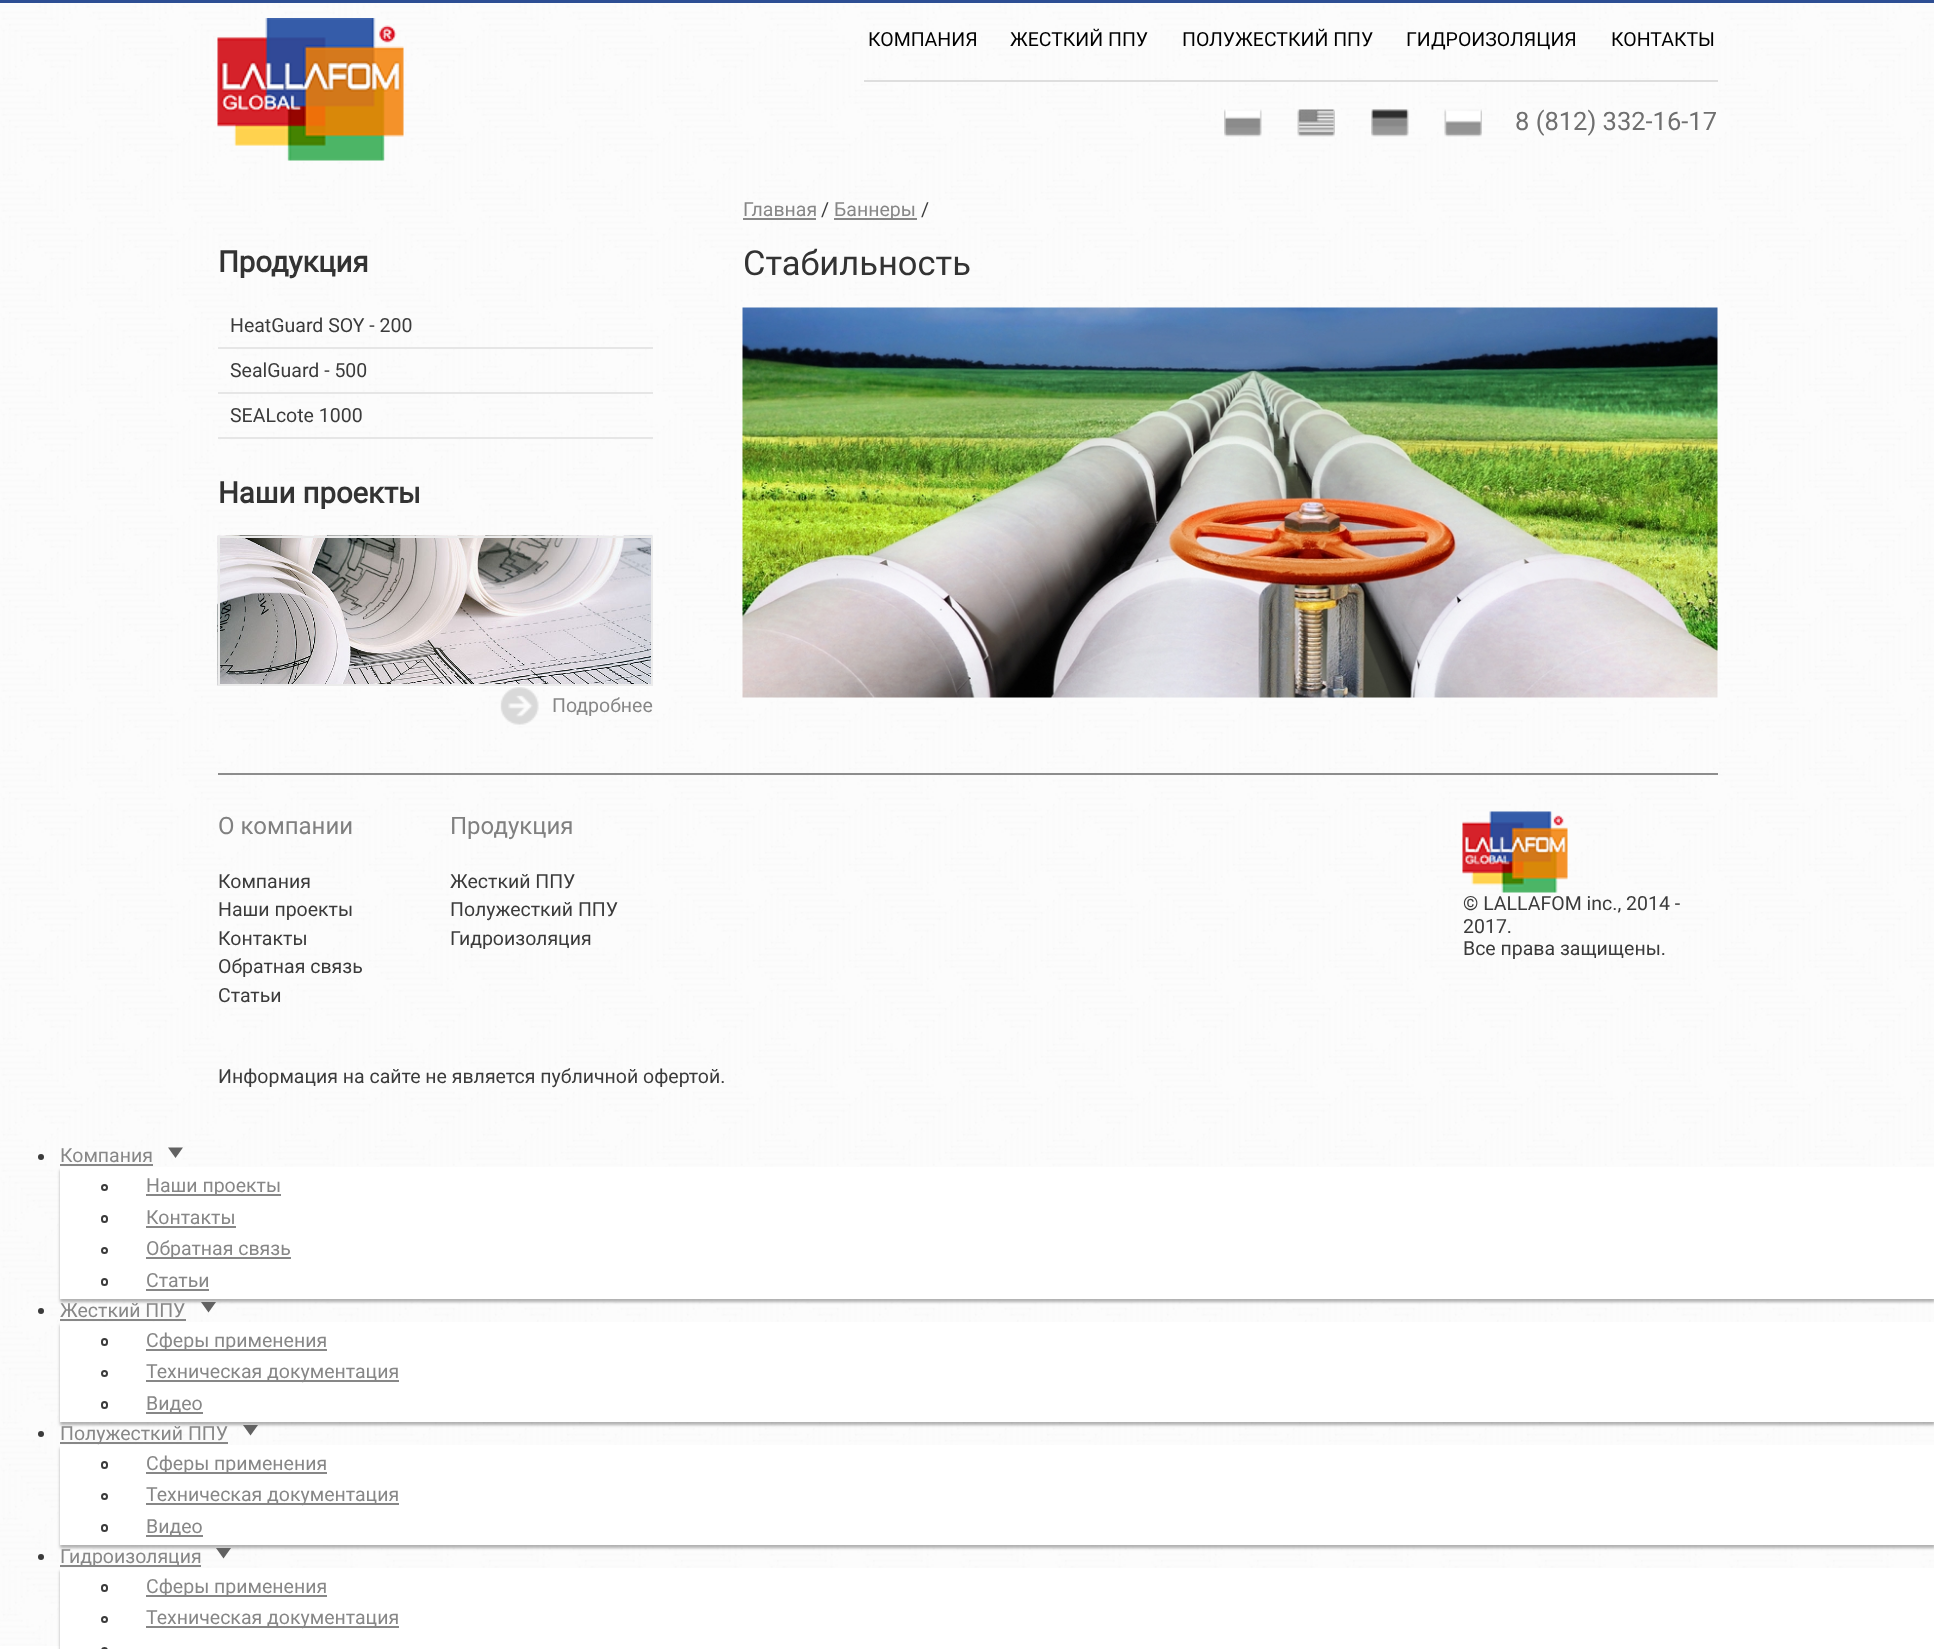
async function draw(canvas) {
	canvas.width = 1934;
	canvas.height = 1649;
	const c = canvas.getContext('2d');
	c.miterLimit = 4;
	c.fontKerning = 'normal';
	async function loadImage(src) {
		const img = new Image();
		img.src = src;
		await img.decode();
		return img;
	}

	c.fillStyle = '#fff';
	c.fillRect(0, 0, 1934, 1649);
	c.drawImage(await loadImage('img1.png'), 0, 3, 1934, 1643);
	c.fillStyle = '#2d4e93';
	c.fillRect(0, 0, 1934, 3);
	c.drawImage(await loadImage('img2.png'), 217, 18, 187, 143);
	c.fillStyle = '#dedede';
	c.fillRect(864, 80, 854, 2);
	c.font = '19.5px Roboto';
	c.fillStyle = '#000';
	for (const [text, x, y] of [
		['КОМПАНИЯ', 868, 46],
		['ЖЕСТКИЙ ППУ', 1010, 46],
		['ПОЛУЖЕСТКИЙ ППУ', 1182, 46],
		['ГИДРОИЗОЛЯЦИЯ', 1406, 46],
		['КОНТАКТЫ', 1611, 46],
	]) {
		c.fillText(text, x, y);
	}
	c.drawImage(await loadImage('img3.png'), 1224, 109, 38, 28);
	c.drawImage(await loadImage('img4.png'), 1297, 109, 38, 28);
	c.drawImage(await loadImage('img5.png'), 1371, 109, 38, 28);
	c.drawImage(await loadImage('img6.png'), 1444, 109, 38, 28);
	c.font = '25.5px Roboto';
	c.fillStyle = '#6f6f6f';
	c.fillText('8 (812) 332-16-17', 1515, 130);
	c.font = '19.5px Roboto';
	c.fillStyle = '#878787';
	c.fillText('Главная', 743, 216);
	c.fillRect(743, 218, 73, 2);
	c.fillStyle = '#3b3b3b';
	c.fillText('/', 821, 216);
	c.fillStyle = '#878787';
	c.fillRect(834, 218, 83, 2);
	c.fillText('Баннеры', 834, 216);
	c.fillStyle = '#3b3b3b';
	c.fillText('/', 921, 216);
	c.font = '34.5px Roboto';
	c.fillStyle = '#333';
	c.fillText('Стабильность', 743, 275);
	c.drawImage(await loadImage('img7.png'), 742, 307, 976, 391);
	c.font = 'bold 29.25px Roboto';
	c.fillText('Продукция', 218, 272);
	c.fillStyle = '#e6e6e6';
	c.fillRect(218, 347, 435, 2);
	c.font = '19.5px Roboto';
	c.fillStyle = '#3b3b3b';
	c.fillText('HeatGuard SOY - 200', 230, 332);
	c.fillStyle = '#e6e6e6';
	c.fillRect(218, 392, 435, 2);
	c.fillStyle = '#3b3b3b';
	c.fillText('SealGuard - 500', 230, 377);
	c.fillStyle = '#e6e6e6';
	c.fillRect(218, 437, 435, 2);
	c.fillStyle = '#3b3b3b';
	c.fillText('SEALcote 1000', 230, 422);
	c.font = 'bold 29.25px Roboto';
	c.fillStyle = '#333';
	c.fillText('Наши проекты', 218, 503);
	c.drawImage(await loadImage('img8.png'), 217, 535, 436, 151);
	c.strokeStyle = '#ebebeb';
	c.lineWidth = 2;
	c.strokeRect(219, 537, 433, 148);
	c.drawImage(await loadImage('img9.png'), 500, 687, 39, 38);
	c.font = '19.5px Roboto';
	c.fillStyle = '#878787';
	c.fillText('Подробнее', 552, 712);
	c.fillStyle = '#8d8d8d';
	c.fillRect(218, 773, 1500, 2);
	c.font = '24px Roboto';
	c.fillStyle = '#808080';
	c.fillText('О компании', 218, 834);
	c.font = '19.5px Roboto';
	c.fillStyle = '#3b3b3b';
	for (const [text, x, y] of [
		['Компания', 218, 888],
		['Наши проекты', 218, 916],
		['Контакты', 218, 945],
		['Обратная связь', 218, 973],
		['Статьи', 218, 1002],
	]) {
		c.fillText(text, x, y);
	}
	c.font = '24px Roboto';
	c.fillStyle = '#808080';
	c.fillText('Продукция', 450, 834);
	c.font = '19.5px Roboto';
	c.fillStyle = '#3b3b3b';
	for (const [text, x, y] of [
		['Жесткий ППУ', 450, 888],
		['Полужесткий ППУ', 450, 916],
		['Гидроизоляция', 450, 945],
	]) {
		c.fillText(text, x, y);
	}
	c.drawImage(await loadImage('img10.png'), 1462, 811, 106, 82);
	for (const [text, x, y] of [
		['© LALLAFOM inc., 2014 -', 1463, 910],
		['2017.', 1463, 933],
		['Все права защищены.', 1463, 955],
		['Информация на сайте не является публичной офертой.', 218, 1083],
	]) {
		c.fillText(text, x, y);
	}
	c.beginPath();
	c.arc(41, 1157, 3, 0, 2 * Math.PI);
	c.fill();
	c.fillStyle = '#878787';
	c.fillText('Компания', 60, 1162);
	c.fillStyle = '#0000004d';
	c.filter = 'blur(1.5px)';
	c.beginPath();
	c.rect(60, 1170, 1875, 132);
	c.fill();
	c.filter = 'none';
	c.fillStyle = '#878787';
	c.fillRect(60, 1164, 93, 2);
	c.fillStyle = '#626262';
	c.beginPath();
	c.moveTo(168, 1147.5);
	c.lineTo(183, 1147.5);
	c.lineTo(175.5, 1158);
	c.closePath();
	c.fill();
	c.fillStyle = '#fff';
	c.fillRect(60, 1167, 1874, 132);
	c.beginPath();
	c.arc(104.5, 1187.5, 2.5, 0, 2 * Math.PI);
	c.strokeStyle = '#3b3b3b';
	c.stroke();
	c.fillStyle = '#878787';
	c.fillRect(146, 1194, 135, 2);
	c.fillText('Наши проекты', 146, 1192);
	c.beginPath();
	c.roundRect(102, 1216, 5, 6, 2.5);
	c.stroke();
	c.fillText('Контакты', 146, 1224);
	c.fillRect(146, 1226, 90, 2);
	c.beginPath();
	c.arc(104.5, 1250.5, 2.5, 0, 2 * Math.PI);
	c.stroke();
	c.fillRect(146, 1257, 145, 2);
	c.fillText('Обратная связь', 146, 1255);
	c.beginPath();
	c.roundRect(102, 1279, 5, 6, 2.5);
	c.stroke();
	c.fillText('Статьи', 146, 1287);
	c.fillRect(146, 1289, 63, 2);
	c.fillStyle = '#3b3b3b';
	c.beginPath();
	c.arc(41, 1311, 3, 0, 2 * Math.PI);
	c.fill();
	c.fillStyle = '#878787';
	c.fillText('Жесткий ППУ', 60, 1317);
	c.fillStyle = '#0000004d';
	c.filter = 'blur(1.5px)';
	c.beginPath();
	c.rect(60, 1325, 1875, 100);
	c.fill();
	c.filter = 'none';
	c.fillStyle = '#878787';
	c.fillRect(60, 1319, 126, 2);
	c.fillStyle = '#626262';
	c.beginPath();
	c.moveTo(201, 1302);
	c.lineTo(216, 1302);
	c.lineTo(208.5, 1312.5);
	c.closePath();
	c.fill();
	c.fillStyle = '#fff';
	c.fillRect(60, 1322, 1874, 100);
	c.beginPath();
	c.roundRect(102, 1339, 5, 6, 2.5);
	c.stroke();
	c.fillStyle = '#878787';
	c.fillRect(146, 1349, 181, 2);
	c.fillText('Сферы применения', 146, 1347);
	c.beginPath();
	c.arc(104.5, 1373.5, 2.5, 0, 2 * Math.PI);
	c.stroke();
	c.fillRect(146, 1380, 253, 2);
	c.fillText('Техническая документация', 146, 1378);
	c.beginPath();
	c.roundRect(102, 1402, 5, 6, 2.5);
	c.stroke();
	c.fillRect(146, 1412, 57, 2);
	c.fillText('Видео', 146, 1410);
	c.fillStyle = '#3b3b3b';
	c.beginPath();
	c.arc(41, 1434, 3, 0, 2 * Math.PI);
	c.fill();
	c.fillStyle = '#0000004d';
	c.filter = 'blur(1.5px)';
	c.beginPath();
	c.rect(60, 1448, 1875, 100);
	c.fill();
	c.filter = 'none';
	c.fillStyle = '#878787';
	c.fillRect(60, 1442, 168, 2);
	c.fillText('Полужесткий ППУ', 60, 1440);
	c.fillStyle = '#626262';
	c.beginPath();
	c.moveTo(243, 1425);
	c.lineTo(258, 1425);
	c.lineTo(250.5, 1435.5);
	c.closePath();
	c.fill();
	c.fillStyle = '#fff';
	c.fillRect(60, 1445, 1874, 100);
	c.beginPath();
	c.roundRect(102, 1462, 5, 6, 2.5);
	c.stroke();
	c.fillStyle = '#878787';
	c.fillRect(146, 1472, 181, 2);
	c.fillText('Сферы применения', 146, 1470);
	c.beginPath();
	c.arc(104.5, 1496.5, 2.5, 0, 2 * Math.PI);
	c.stroke();
	c.fillRect(146, 1503, 253, 2);
	c.fillText('Техническая документация', 146, 1501);
	c.beginPath();
	c.roundRect(102, 1525, 5, 6, 2.5);
	c.stroke();
	c.fillRect(146, 1535, 57, 2);
	c.fillText('Видео', 146, 1533);
	c.fillStyle = '#3b3b3b';
	c.beginPath();
	c.arc(41, 1557, 3, 0, 2 * Math.PI);
	c.fill();
	c.fillStyle = '#0000004d';
	c.filter = 'blur(1.5px)';
	c.beginPath();
	c.rect(60, 1571, 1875, 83);
	c.fill();
	c.filter = 'none';
	c.fillStyle = '#878787';
	c.fillRect(60, 1565, 141, 2);
	c.fillText('Гидроизоляция', 60, 1563);
	c.fillStyle = '#626262';
	c.beginPath();
	c.moveTo(216, 1548);
	c.lineTo(231, 1548);
	c.lineTo(223.5, 1558.5);
	c.closePath();
	c.fill();
	c.fillStyle = '#fff';
	c.fillRect(60, 1568, 1874, 81);
	c.beginPath();
	c.roundRect(102, 1585, 5, 6, 2.5);
	c.stroke();
	c.fillStyle = '#878787';
	c.fillRect(146, 1595, 181, 2);
	c.fillText('Сферы применения', 146, 1593);
	c.beginPath();
	c.arc(104.5, 1619.5, 2.5, 0, 2 * Math.PI);
	c.stroke();
	c.fillRect(146, 1626, 253, 2);
	c.fillText('Техническая документация', 146, 1624);
	c.beginPath();
	c.roundRect(102, 1648, 5, 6, 2.5);
	c.stroke();
}

draw(document.querySelector('canvas'));
